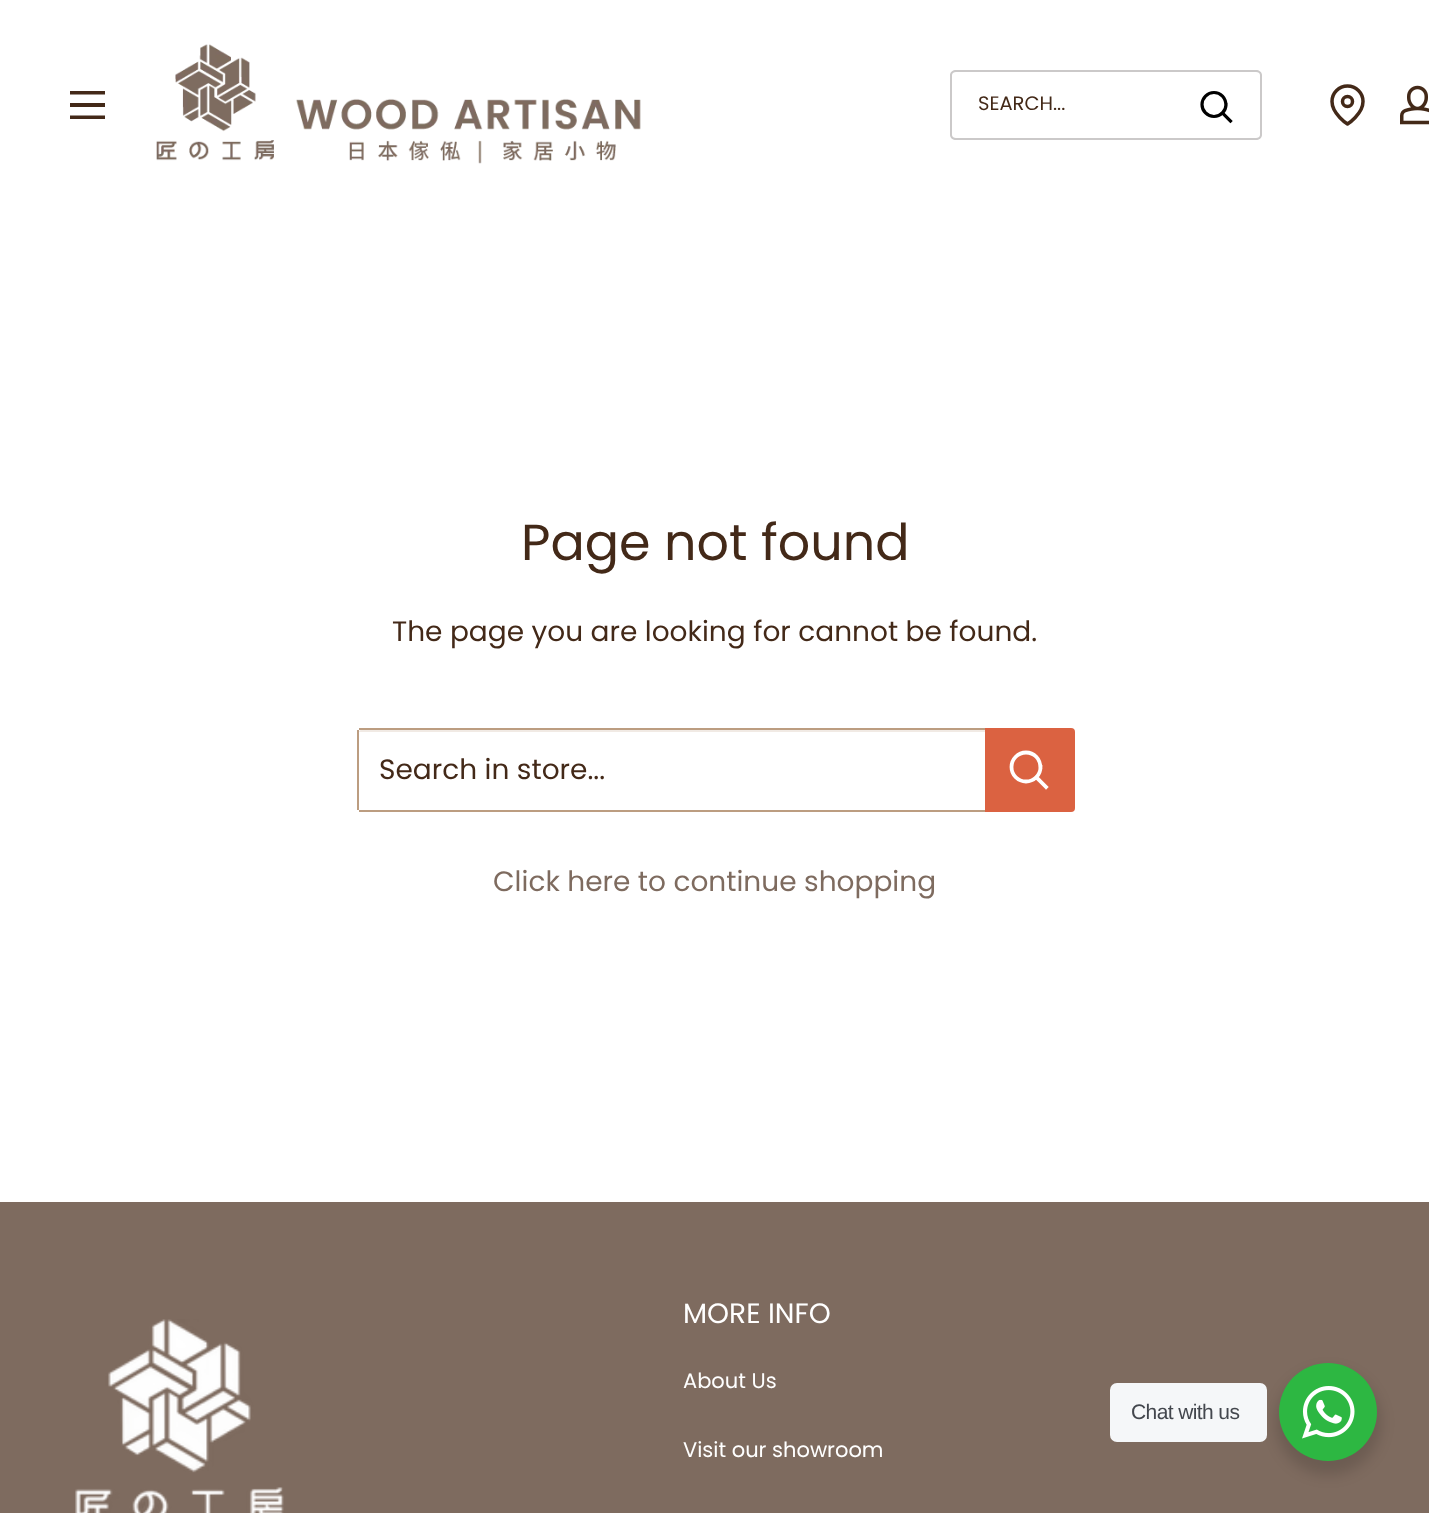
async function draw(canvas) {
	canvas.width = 1429;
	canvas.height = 1513;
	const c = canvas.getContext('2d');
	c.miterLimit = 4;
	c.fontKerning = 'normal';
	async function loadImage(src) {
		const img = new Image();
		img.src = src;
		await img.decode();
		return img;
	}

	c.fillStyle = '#fff';
	c.fillRect(0, 0, 1429, 1513);
	c.fillStyle = '#432918';
	c.beginPath();
	c.moveTo(70, 115.5);
	c.lineTo(105, 115.5);
	c.lineTo(105, 119);
	c.lineTo(70, 119);
	c.closePath();
	c.moveTo(70, 91);
	c.lineTo(105, 91);
	c.lineTo(105, 94.5);
	c.lineTo(70, 94.5);
	c.closePath();
	c.moveTo(70, 103);
	c.lineTo(105, 103);
	c.lineTo(105, 107);
	c.lineTo(70, 107);
	c.closePath();
	c.fill('evenodd');
	c.drawImage(await loadImage('img1.png'), 156, 44, 485, 120);
	c.fillStyle = '#cbc9c9';
	c.beginPath();
	c.moveTo(956, 70);
	c.lineTo(1174, 70);
	c.lineTo(1174, 140);
	c.lineTo(956, 140);
	c.bezierCurveTo(953, 140, 950, 138, 950, 135);
	c.lineTo(950, 75);
	c.bezierCurveTo(950, 72, 953, 70, 956, 70);
	c.closePath();
	c.moveTo(956, 72);
	c.lineTo(1174, 72);
	c.lineTo(1174, 138);
	c.lineTo(956, 138);
	c.bezierCurveTo(954, 138, 952, 137, 952, 135);
	c.lineTo(952, 75);
	c.bezierCurveTo(952, 73, 954, 72, 956, 72);
	c.closePath();
	c.fill('evenodd');
	c.font = '19.5px Poppins';
	c.fillStyle = '#432918';
	c.fillText('SEARCH...', 978, 110);
	c.fillStyle = '#cbc9c9';
	c.beginPath();
	c.moveTo(1174, 70);
	c.lineTo(1256, 70);
	c.bezierCurveTo(1259, 70, 1262, 72, 1262, 75);
	c.lineTo(1262, 135);
	c.bezierCurveTo(1262, 138, 1259, 140, 1256, 140);
	c.lineTo(1174, 140);
	c.closePath();
	c.moveTo(1174, 72);
	c.lineTo(1256, 72);
	c.bezierCurveTo(1258, 72, 1260, 73, 1260, 75);
	c.lineTo(1260, 135);
	c.bezierCurveTo(1260, 137, 1258, 138, 1256, 138);
	c.lineTo(1174, 138);
	c.closePath();
	c.fill('evenodd');
	c.beginPath();
	c.moveTo(1230.5, 121);
	c.lineTo(1222.5, 113);
	c.strokeStyle = '#000';
	c.lineWidth = 3.2;
	c.lineCap = 'square';
	c.stroke();
	c.beginPath();
	c.arc(1214, 104.5, 12, 0, 2 * Math.PI);
	c.stroke();
	c.beginPath();
	c.moveTo(1363, 101.5);
	c.bezierCurveTo(1363, 114, 1347.5, 124, 1347.5, 124);
	c.bezierCurveTo(1347.5, 124, 1332, 114, 1332, 101.5);
	c.bezierCurveTo(1332, 93, 1339, 86, 1347.5, 86);
	c.bezierCurveTo(1356, 86, 1363, 93, 1363, 101.5);
	c.closePath();
	c.strokeStyle = '#432918';
	c.lineWidth = 3.5;
	c.lineCap = 'round';
	c.lineJoin = 'round';
	c.stroke();
	c.beginPath();
	c.arc(1347.5, 101.5, 5, 0, 2 * Math.PI);
	c.stroke();
	c.drawImage(await loadImage('img2.png'), 1400, 85, 29, 40);
	c.font = '50.75px Poppins';
	c.fillStyle = '#432918';
	c.fillText('Page not found', 521, 560);
	c.font = '28px Poppins';
	c.fillText('The page you are looking for cannot be found.', 392, 641);
	c.fillStyle = '#f1eae4';
	c.beginPath();
	c.moveTo(360, 732);
	c.lineTo(985, 732);
	c.lineTo(985, 730);
	c.lineTo(361, 730);
	c.bezierCurveTo(360, 730, 359, 731, 359, 732);
	c.closePath();
	c.fill();
	for (const [x, y, w, h, color] of [
		[359, 728, 626, 2, '#bc9d81'],
		[359, 810, 626, 2, '#bc9d81'],
		[357, 730, 2, 80, '#bc9d81'],
	]) {
		c.fillStyle = color;
		c.fillRect(x, y, w, h);
	}
	c.fillStyle = '#432918';
	c.fillText('Search in store...', 379, 779);
	c.fillStyle = '#db6241';
	c.beginPath();
	c.roundRect(985, 728, 90, 84, [0, 4, 4, 0]);
	c.fill();
	c.beginPath();
	c.moveTo(1046, 787);
	c.lineTo(1036.5, 777.5);
	c.strokeStyle = '#fff';
	c.lineWidth = 3.8;
	c.lineCap = 'square';
	c.lineJoin = 'miter';
	c.stroke();
	c.beginPath();
	c.arc(1026, 767, 14.5, 0, 2 * Math.PI);
	c.stroke();
	c.fillStyle = '#7e6b5f';
	c.fillText('Click here to continue shopping', 493, 891);
	c.fillRect(0, 1202, 1429, 311);
	c.drawImage(await loadImage('img3.png'), 75, 1319, 209, 194);
	c.fillStyle = '#fff';
	c.fillText('MORE INFO', 683, 1323);
	c.font = '21px Poppins';
	c.fillText('About Us', 683, 1388);
	c.fillText('Visit our showroom', 683, 1457);
	c.fillStyle = '#00000024';
	c.filter = 'blur(7px)';
	c.beginPath();
	c.roundRect(1276, 1370, 105, 105, 52.5);
	c.fill();
	c.filter = 'none';
	c.fillStyle = '#f5f7f9';
	c.beginPath();
	c.roundRect(1110, 1383, 157, 59, 7);
	c.fill();
	c.letterSpacing = '-0.6px';
	c.font = '21px Liberation Sans';
	c.fillStyle = '#43474e';
	c.fillText('Chat with us', 1131, 1419);
	c.fillStyle = '#2db742';
	c.beginPath();
	c.arc(1328, 1412, 49, 0, 2 * Math.PI);
	c.fill();
	c.drawImage(await loadImage('img4.png'), 1302, 1386, 53, 53);
}

draw(document.querySelector('canvas'));
